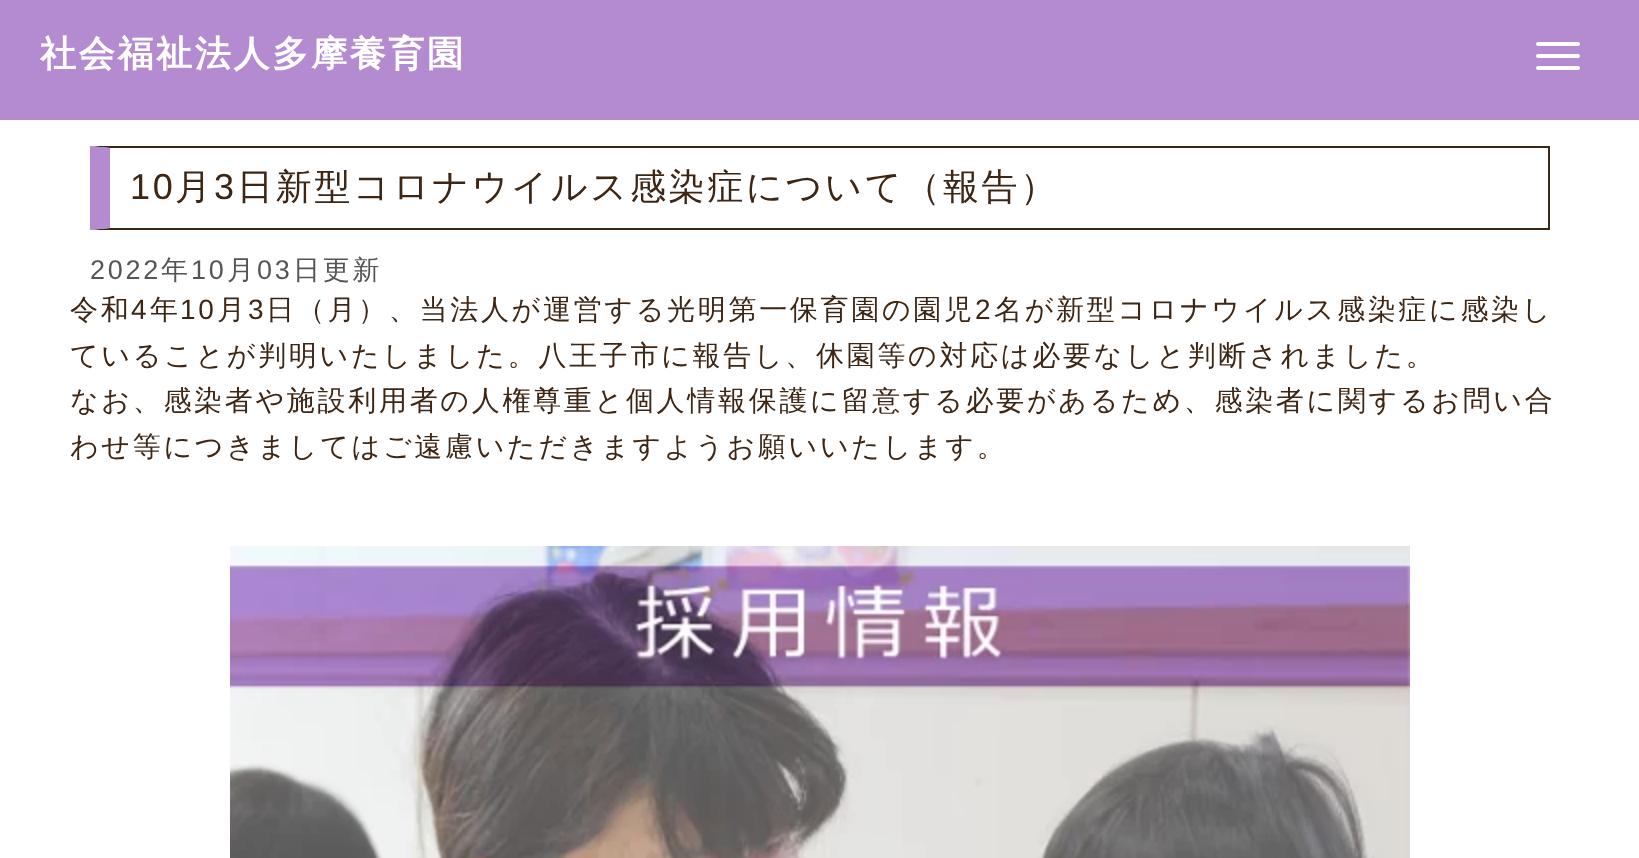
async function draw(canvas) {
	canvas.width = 1639;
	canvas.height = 858;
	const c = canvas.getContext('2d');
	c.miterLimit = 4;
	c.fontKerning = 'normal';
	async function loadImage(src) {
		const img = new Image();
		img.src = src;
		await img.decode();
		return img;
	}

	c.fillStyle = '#fff';
	c.fillRect(0, 0, 1639, 858);
	c.fillStyle = '#b48ad1';
	c.fillRect(0, 0, 1639, 120);
	c.letterSpacing = '2.7px';
	c.font = 'bold 36px WenQuanYi Zen Hei';
	c.fillStyle = '#fff';
	c.fillText('社会福祉法人多摩養育園', 40, 66);
	c.beginPath();
	c.roundRect(1536, 42, 44, 4, 2);
	c.fill();
	c.beginPath();
	c.roundRect(1536, 54, 44, 4, 2);
	c.fill();
	c.beginPath();
	c.roundRect(1536, 66, 44, 4, 2);
	c.fill();
	c.fillStyle = '#3d2614';
	c.beginPath();
	c.moveTo(90, 146);
	c.lineTo(1550, 146);
	c.lineTo(1548, 148);
	c.lineTo(110, 148);
	c.closePath();
	c.fill();
	c.fillRect(1548, 146, 2, 84);
	c.beginPath();
	c.moveTo(1550, 230);
	c.lineTo(90, 230);
	c.lineTo(110, 228);
	c.lineTo(1548, 228);
	c.closePath();
	c.fill();
	c.fillStyle = '#b48ad1';
	c.beginPath();
	c.moveTo(90, 230);
	c.lineTo(90, 146);
	c.lineTo(110, 148);
	c.lineTo(110, 228);
	c.closePath();
	c.fill();
	c.font = '36px Liberation Sans';
	c.fillStyle = '#3d2614';
	c.fillText('10', 130, 199);
	c.font = '500 36px WenQuanYi Zen Hei';
	c.fillText('月', 175, 199);
	c.font = '36px Liberation Sans';
	c.fillText('3', 214, 199);
	c.font = '500 36px WenQuanYi Zen Hei';
	c.fillText('日新型コロナウイルス感染症について（報告）', 237, 199);
	c.font = '27px Liberation Sans';
	c.fillStyle = '#555';
	c.fillText('2022', 90, 279);
	c.font = '500 27px WenQuanYi Zen Hei';
	c.fillText('年', 161, 279);
	c.font = '27px Liberation Sans';
	c.fillText('10', 191, 279);
	c.font = '500 27px WenQuanYi Zen Hei';
	c.fillText('月', 227, 279);
	c.font = '27px Liberation Sans';
	c.fillText('03', 257, 279);
	c.font = '500 27px WenQuanYi Zen Hei';
	c.fillText('日更新', 293, 279);
	c.font = '500 28px WenQuanYi Zen Hei';
	c.fillStyle = '#3d2614';
	c.fillText('令和', 70, 319);
	c.font = '28px Liberation Sans';
	c.fillText('4', 131, 319);
	c.font = '500 28px WenQuanYi Zen Hei';
	c.fillText('年', 150, 319);
	c.font = '28px Liberation Sans';
	c.fillText('10', 180, 319);
	c.font = '500 28px WenQuanYi Zen Hei';
	c.fillText('月', 217, 319);
	c.font = '28px Liberation Sans';
	c.fillText('3', 248, 319);
	c.font = '500 28px WenQuanYi Zen Hei';
	c.fillText('日（月）、当法人が運営する光明第一保育園の園児', 266, 319);
	c.font = '28px Liberation Sans';
	c.fillText('2', 975, 319);
	c.font = '500 28px WenQuanYi Zen Hei';
	for (const [text, x, y] of [
		['名が新型コロナウイルス感染症に感染し', 994, 319],
		['ていることが判明いたしました。八王子市に報告し、休園等の対応は必要なしと判断されました。', 70, 365],
		['なお、感染者や施設利用者の人権尊重と個人情報保護に留意する必要があるため、感染者に関するお問い合', 70, 410],
		['わせ等につきましてはご遠慮いただきますようお願いいたします。', 70, 456],
	]) {
		c.fillText(text, x, y);
	}
	c.drawImage(await loadImage('img1.png'), 230, 546, 1180, 312);
}

draw(document.querySelector('canvas'));
